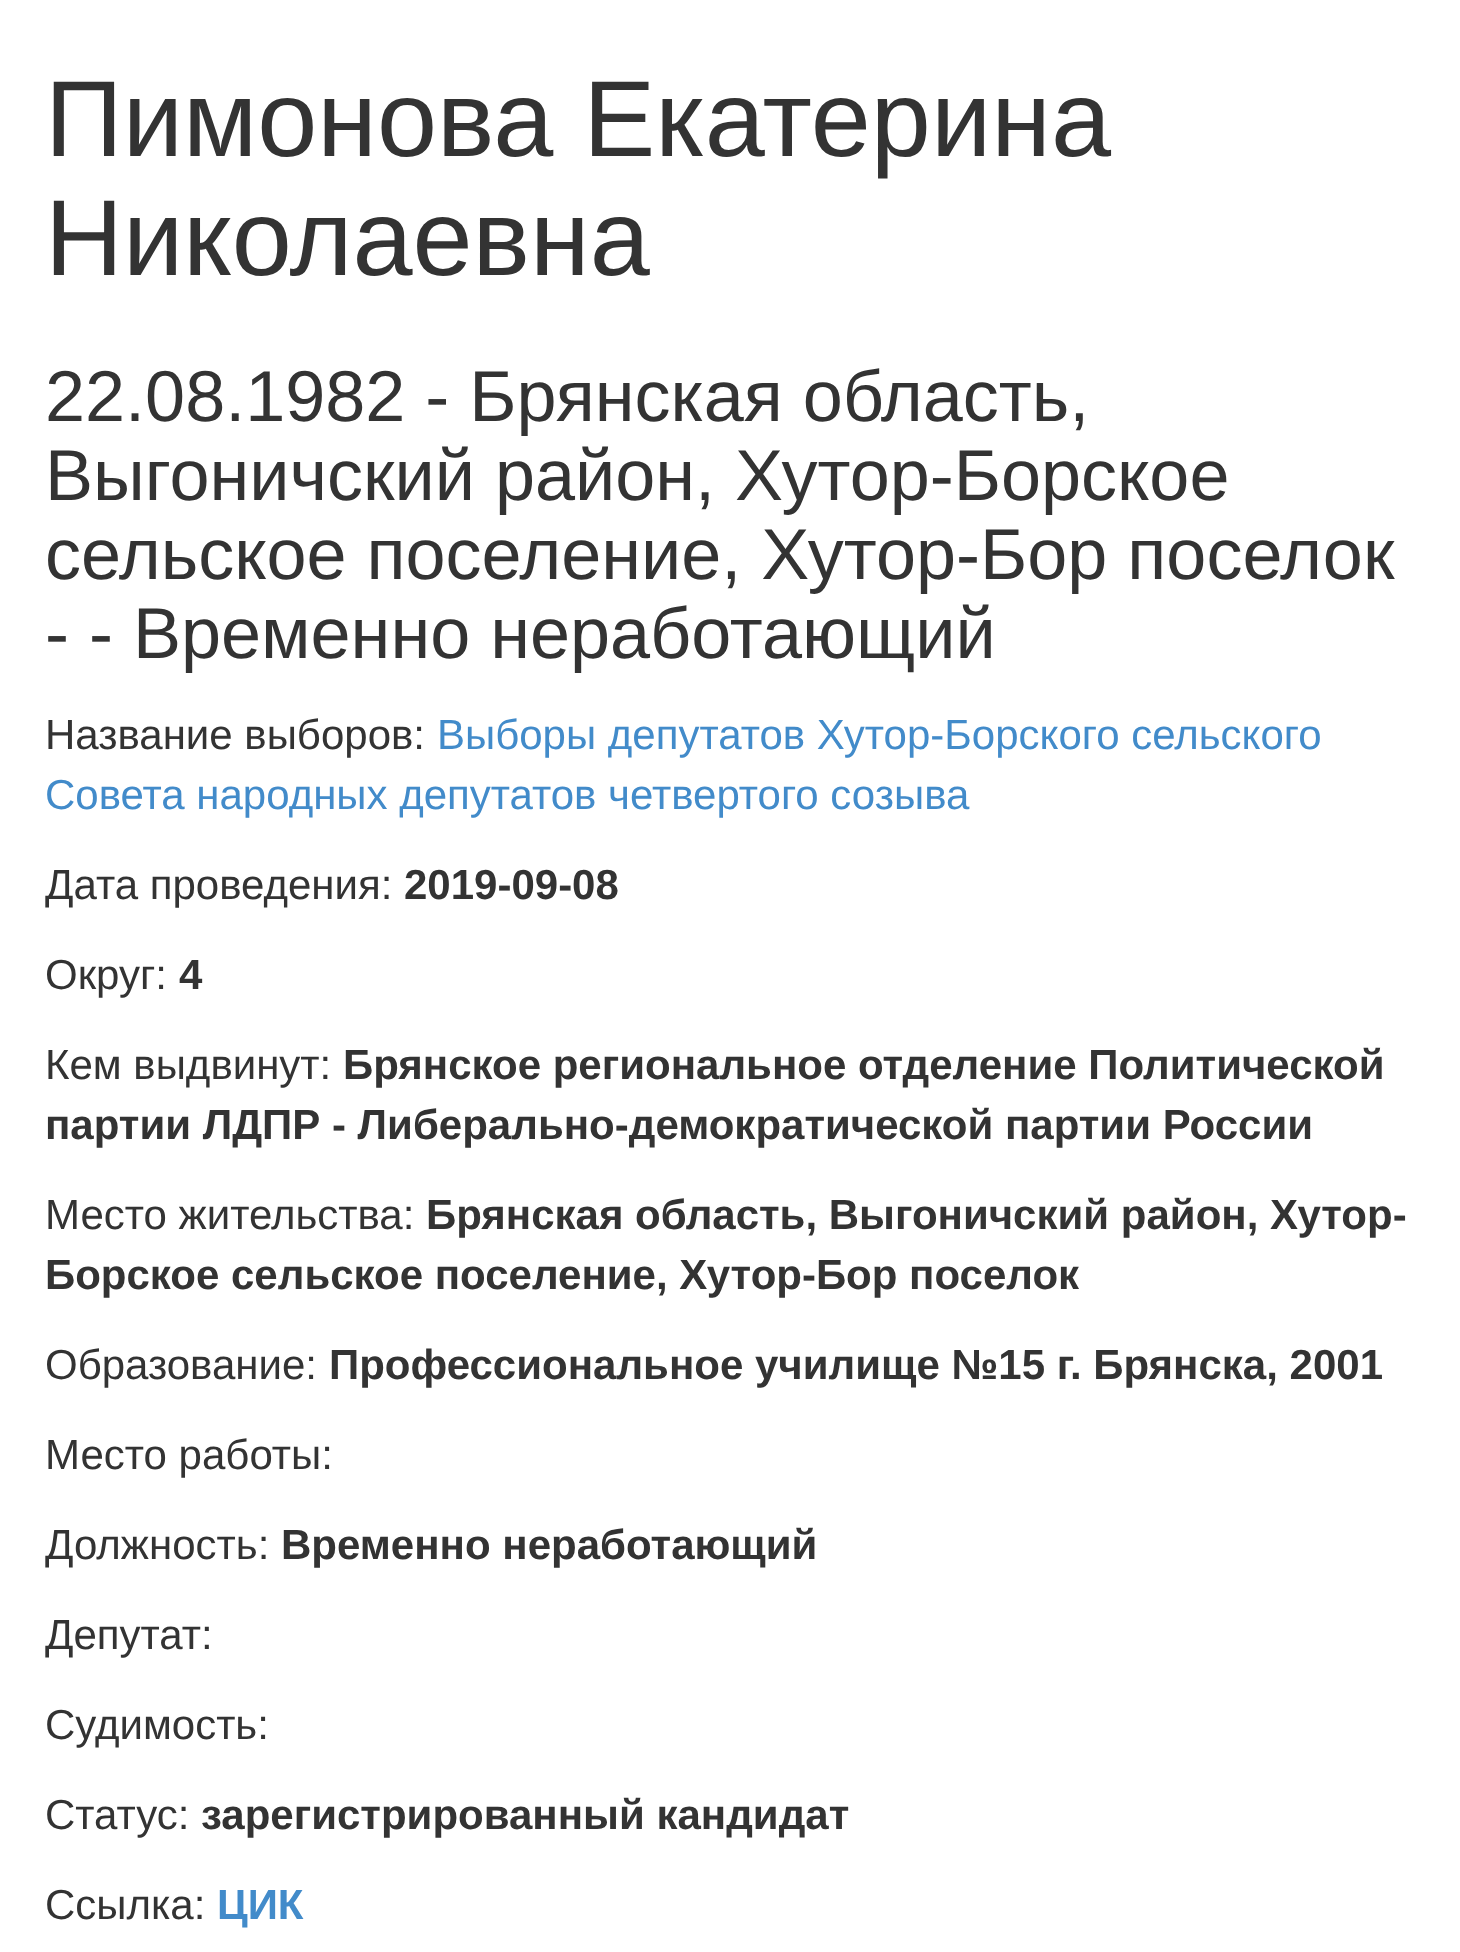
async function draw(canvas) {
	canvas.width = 1460;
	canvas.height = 1952;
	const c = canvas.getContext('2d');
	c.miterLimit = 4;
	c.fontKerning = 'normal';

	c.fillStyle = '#fff';
	c.fillRect(0, 0, 1460, 1952);
	c.font = '108px Liberation Sans';
	c.fillStyle = '#333';
	c.fillText('Пимонова Екатерина', 45, 156);
	c.fillText('Николаевна', 45, 275);
	c.font = '72px Liberation Sans';
	for (const [text, x, y] of [
		['22.08.1982 - Брянская область,', 45, 421],
		['Выгоничский район, Хутор-Борское', 45, 500],
		['сельское поселение, Хутор-Бор поселок', 45, 579],
		['- - Временно неработающий', 45, 658],
	]) {
		c.fillText(text, x, y);
	}
	c.font = '42px Liberation Sans';
	c.fillText('Название выборов:', 45, 749);
	c.fillStyle = '#428bca';
	c.fillText('Выборы депутатов Хутор-Борского сельского', 437, 749);
	c.fillText('Совета народных депутатов четвертого созыва', 45, 809);
	c.fillStyle = '#333';
	c.fillText('Дата проведения:', 45, 899);
	c.font = 'bold 42px Liberation Sans';
	c.fillText('2019-09-08', 404, 899);
	c.font = '42px Liberation Sans';
	c.fillText('Округ:', 45, 989);
	c.font = 'bold 42px Liberation Sans';
	c.fillText('4', 179, 989);
	c.font = '42px Liberation Sans';
	c.fillText('Кем выдвинут:', 45, 1079);
	c.font = 'bold 42px Liberation Sans';
	c.fillText('Брянское региональное отделение Политической', 343, 1079);
	c.fillText('партии ЛДПР - Либерально-демократической партии России', 45, 1139);
	c.font = '42px Liberation Sans';
	c.fillText('Место жительства:', 45, 1229);
	c.font = 'bold 42px Liberation Sans';
	c.fillText('Брянская область, Выгоничский район, Хутор-', 426, 1229);
	c.fillText('Борское сельское поселение, Хутор-Бор поселок', 45, 1289);
	c.font = '42px Liberation Sans';
	c.fillText('Образование:', 45, 1379);
	c.font = 'bold 42px Liberation Sans';
	c.fillText('Профессиональное училище №15 г. Брянска, 2001', 329, 1379);
	c.font = '42px Liberation Sans';
	c.fillText('Место работы:', 45, 1469);
	c.fillText('Должность:', 45, 1559);
	c.font = 'bold 42px Liberation Sans';
	c.fillText('Временно неработающий', 281, 1559);
	c.font = '42px Liberation Sans';
	for (const [text, x, y] of [
		['Депутат:', 45, 1649],
		['Судимость:', 45, 1739],
		['Статус:', 45, 1829],
	]) {
		c.fillText(text, x, y);
	}
	c.font = 'bold 42px Liberation Sans';
	c.fillText('зарегистрированный кандидат', 201, 1829);
	c.font = '42px Liberation Sans';
	c.fillText('Ссылка:', 45, 1919);
	c.font = 'bold 42px Liberation Sans';
	c.fillStyle = '#428bca';
	c.fillText('ЦИК', 217, 1919);
}

draw(document.querySelector('canvas'));
